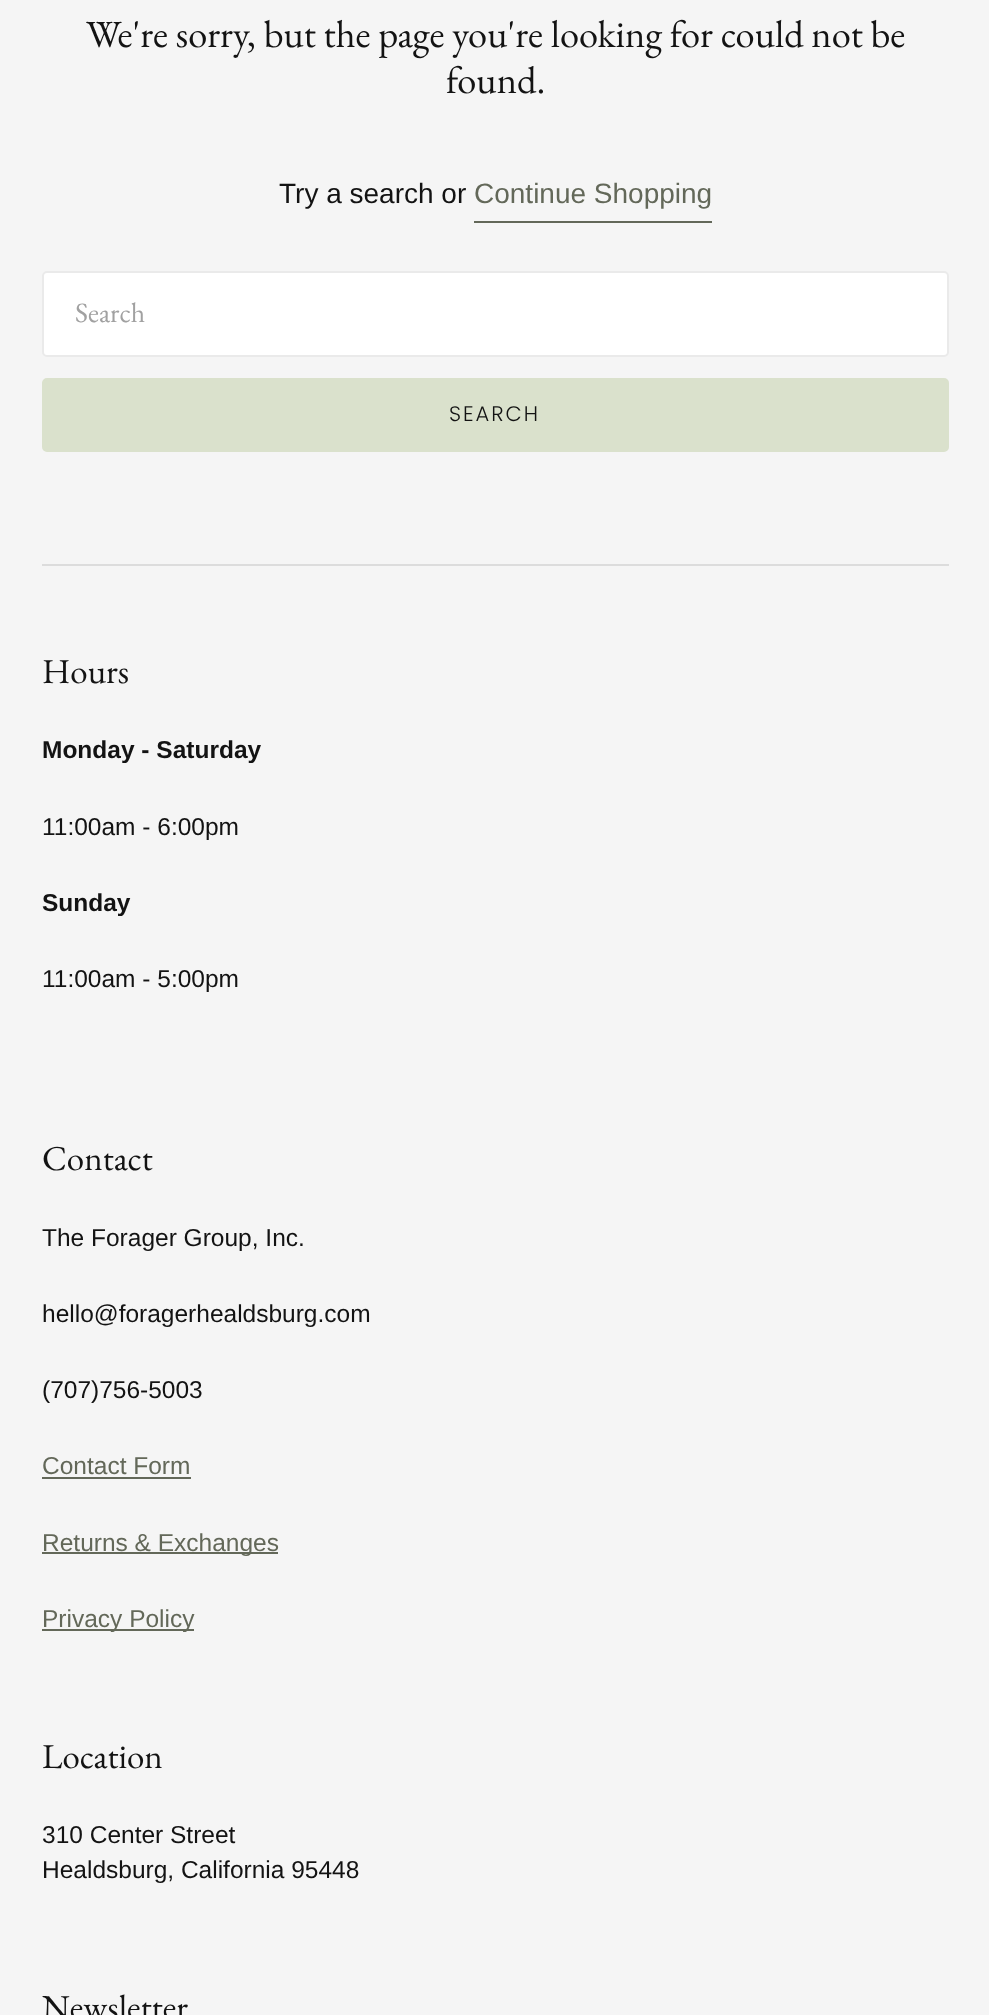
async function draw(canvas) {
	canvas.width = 989;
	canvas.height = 2015;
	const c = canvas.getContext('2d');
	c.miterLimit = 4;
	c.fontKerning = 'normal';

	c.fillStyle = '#f5f5f5';
	c.fillRect(0, 0, 989, 2015);
	c.font = '38.5px EB Garamond';
	c.fillStyle = '#131313';
	c.fillText('We\'re sorry, but the page you\'re looking for could not be', 86, 47);
	c.fillText('found.', 446, 93);
	c.font = '28px Liberation Sans';
	c.fillText('Try a search or', 279, 203);
	c.fillStyle = '#636859';
	c.fillText('Continue Shopping', 474, 203);
	c.fillRect(474, 221, 238, 2);
	c.fillStyle = '#fff';
	c.beginPath();
	c.roundRect(43, 272, 905, 84, 4);
	c.fill();
	c.strokeStyle = '#eaeaea';
	c.lineWidth = 2;
	c.stroke();
	c.font = '28px EB Garamond';
	c.fillStyle = '#a1a1a1';
	c.fillText('Search', 75, 322);
	c.fillStyle = '#dae1cc';
	c.beginPath();
	c.roundRect(43, 379, 905, 72, 4);
	c.fill();
	c.strokeStyle = '#dae1cc';
	c.stroke();
	c.letterSpacing = '2px';
	c.font = '300 21px Poppins';
	c.fillStyle = '#131313';
	c.fillText('SEARCH', 449, 421);
	c.fillStyle = '#dcdcdc';
	c.fillRect(42, 564, 907, 2);
	c.letterSpacing = '0px';
	c.font = '35px EB Garamond';
	c.fillStyle = '#131313';
	c.fillText('Hours', 42, 683);
	c.font = 'bold 24.5px Liberation Sans';
	c.fillText('Monday - Saturday', 42, 758);
	c.font = '24.5px Liberation Sans';
	c.fillText('11:00am - 6:00pm', 42, 835);
	c.font = 'bold 24.5px Liberation Sans';
	c.fillText('Sunday', 42, 911);
	c.font = '24.5px Liberation Sans';
	c.fillText('11:00am - 5:00pm', 42, 987);
	c.font = '35px EB Garamond';
	c.fillText('Contact', 42, 1170);
	c.font = '24.5px Liberation Sans';
	for (const [text, x, y] of [
		['The Forager Group, Inc.', 42, 1246],
		['hello@foragerhealdsburg.com', 42, 1322],
		['(707)756-5003', 42, 1398],
	]) {
		c.fillText(text, x, y);
	}
	c.fillStyle = '#636859';
	c.fillText('Contact Form', 42, 1474);
	c.fillRect(42, 1477, 149, 2);
	c.fillRect(42, 1552, 236, 2);
	c.fillText('Returns & Exchanges', 42, 1551);
	c.fillRect(42, 1629, 152, 2);
	c.fillText('Privacy Policy', 42, 1627);
	c.font = '35px EB Garamond';
	c.fillStyle = '#131313';
	c.fillText('Location', 42, 1768);
	c.font = '24.5px Liberation Sans';
	c.fillText('310 Center Street', 42, 1843);
	c.fillText('Healdsburg, California 95448', 42, 1878);
	c.font = '35px EB Garamond';
	c.fillText('Newsletter', 42, 2019);
}

draw(document.querySelector('canvas'));
